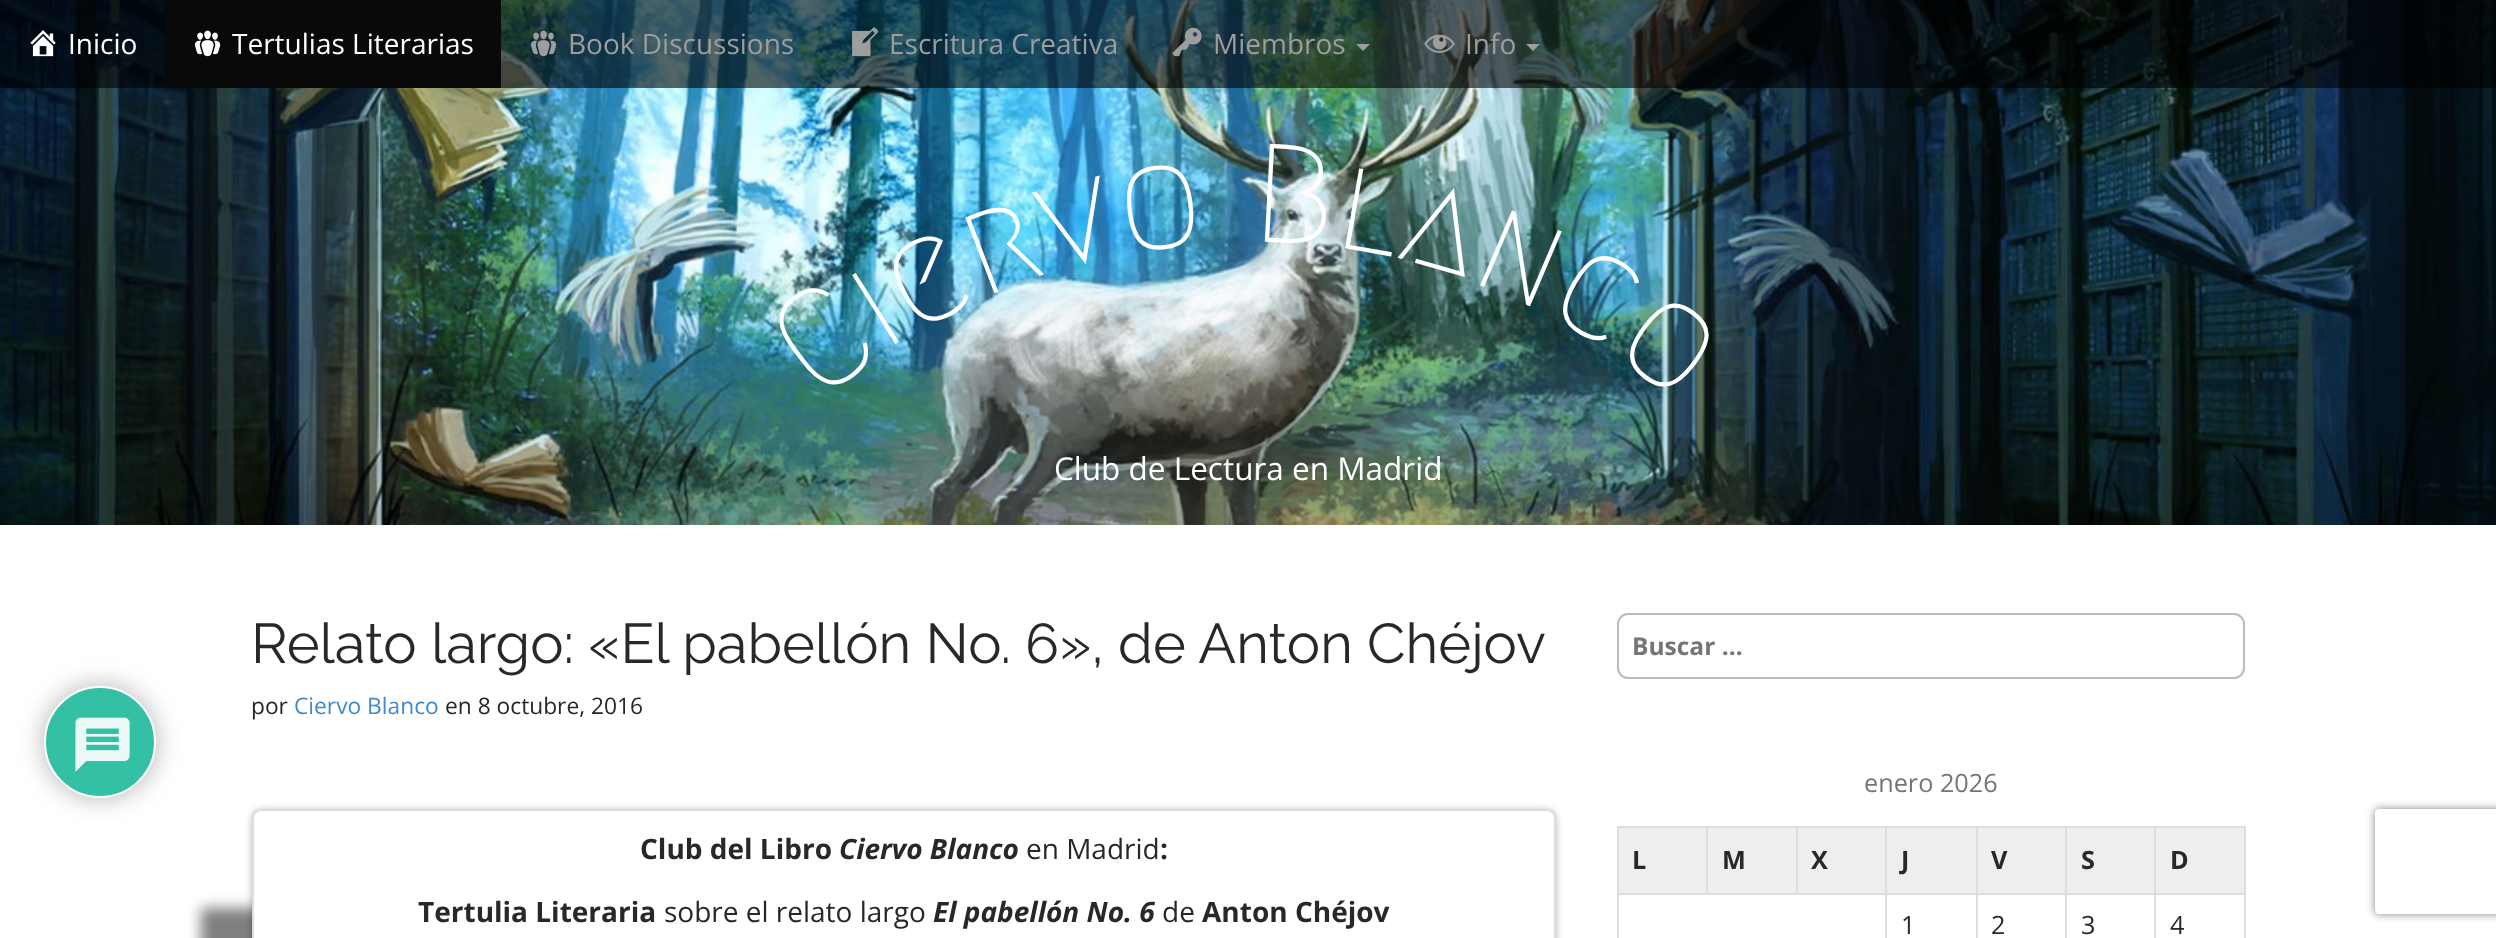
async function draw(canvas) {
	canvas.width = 2496;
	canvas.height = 938;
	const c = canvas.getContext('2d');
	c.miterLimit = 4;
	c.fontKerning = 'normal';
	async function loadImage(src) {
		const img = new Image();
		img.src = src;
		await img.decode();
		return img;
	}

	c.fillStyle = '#fff';
	c.fillRect(0, 0, 2496, 938);
	c.drawImage(await loadImage('img7.png'), 0, 0, 2496, 525);
	c.fillStyle = '#00000099';
	c.fillRect(0, 0, 2496, 88);
	c.drawImage(await loadImage('img1.png'), 30, 30, 26, 27);
	c.font = '28px Open Sans';
	c.fillStyle = '#fff';
	c.fillText('Inicio', 68, 54);
	c.fillStyle = '#090909';
	c.fillRect(165, 0, 336, 88);
	c.drawImage(await loadImage('img2.png'), 194, 30, 27, 27);
	c.fillStyle = '#fff';
	c.fillText('Tertulias Literarias', 232, 54);
	c.drawImage(await loadImage('img3.png'), 530, 30, 27, 27);
	c.fillStyle = '#9d9d9d';
	c.fillText('Book Discussions', 568, 54);
	c.drawImage(await loadImage('img4.png'), 852, 27, 27, 30);
	c.fillText('Escritura Creativa', 889, 54);
	c.drawImage(await loadImage('img5.png'), 1172, 27, 30, 30);
	c.fillText('Miembros', 1213, 54);
	c.beginPath();
	c.moveTo(1356, 44);
	c.lineTo(1370, 44);
	c.lineTo(1363, 51);
	c.closePath();
	c.fill();
	c.drawImage(await loadImage('img6.png'), 1424, 34, 31, 19);
	c.fillText('Info', 1465, 54);
	c.beginPath();
	c.moveTo(1526, 44);
	c.lineTo(1540, 44);
	c.lineTo(1533, 51);
	c.closePath();
	c.fill();
	c.font = '500 140px Megrim';
	c.fillStyle = '#fff';
	c.save();
	c.translate(818, 402);
	c.rotate(-37 * Math.PI / 180);
	c.fillText('C', 0, 0);
	c.restore();
	c.save();
	c.translate(884, 351);
	c.rotate(-32 * Math.PI / 180);
	c.fillText('i', 0, 0);
	c.restore();
	c.save();
	c.translate(912, 334);
	c.rotate(-27 * Math.PI / 180);
	c.fillText('e', 0, 0);
	c.restore();
	c.save();
	c.translate(982, 298);
	c.rotate(-21 * Math.PI / 180);
	c.fillText('r', 0, 0);
	c.restore();
	c.save();
	c.translate(1049, 272);
	c.rotate(-14 * Math.PI / 180);
	c.fillText('v', 0, 0);
	c.restore();
	c.save();
	c.translate(1123, 253);
	c.rotate(-7 * Math.PI / 180);
	c.fillText('o', 0, 0);
	c.restore();
	c.save();
	c.translate(1251, 241);
	c.rotate(3 * Math.PI / 180);
	c.fillText('B', 0, 0);
	c.restore();
	c.save();
	c.translate(1332, 246);
	c.rotate(10 * Math.PI / 180);
	c.fillText('l', 0, 0);
	c.restore();
	c.save();
	c.translate(1395, 257);
	c.rotate(16 * Math.PI / 180);
	c.fillText('a', 0, 0);
	c.restore();
	c.save();
	c.translate(1468, 280);
	c.rotate(23 * Math.PI / 180);
	c.fillText('n', 0, 0);
	c.restore();
	c.save();
	c.translate(1544, 312);
	c.rotate(30 * Math.PI / 180);
	c.fillText('c', 0, 0);
	c.restore();
	c.save();
	c.translate(1611, 352);
	c.rotate(37 * Math.PI / 180);
	c.fillText('o', 0, 0);
	c.restore();
	c.font = '31.5px Open Sans';
	c.fillText('Club de Lectura en Madrid', 1054, 480);
	c.font = '100 56px Raleway';
	c.fillStyle = '#282828';
	c.fillText('Relato largo: «El pabellón No. 6», de Anton Chéjov', 251, 663);
	c.font = '22.75px Open Sans';
	c.fillText('por', 251, 714);
	c.fillStyle = '#428bca';
	c.fillText('Ciervo Blanco', 294, 714);
	c.fillStyle = '#282828';
	c.fillText('en 8 octubre, 2016', 445, 714);
	c.fillStyle = '#0000004d';
	c.filter = 'blur(3.5px)';
	c.beginPath();
	c.roundRect(252, 810, 1304, 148, 9);
	c.fill();
	c.filter = 'none';
	c.fillStyle = '#00000080';
	c.filter = 'blur(7px)';
	c.beginPath();
	c.rect(201, 908, 651, 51);
	c.fill();
	c.filter = 'none';
	c.fillStyle = '#fff';
	c.beginPath();
	c.roundRect(253, 810, 1302, 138, 8);
	c.fill();
	c.strokeStyle = '#ddd';
	c.lineWidth = 2;
	c.stroke();
	c.font = 'bold 28px Open Sans';
	c.fillStyle = '#282828';
	c.fillText('Club del Libro', 640, 859);
	c.font = 'italic bold 28px Open Sans';
	c.fillText('Ciervo Blanco', 839, 859);
	c.font = '28px Open Sans';
	c.fillText('en Madrid', 1026, 859);
	c.font = 'bold 28px Open Sans';
	c.fillText(':', 1160, 859);
	c.fillText('Tertulia Literaria', 418, 922);
	c.font = '28px Open Sans';
	c.fillText('sobre el relato largo', 664, 922);
	c.font = 'italic bold 28px Open Sans';
	c.fillText('El pabellón No. 6', 933, 922);
	c.font = '28px Open Sans';
	c.fillText('de', 1162, 922);
	c.font = 'bold 28px Open Sans';
	c.fillText('Anton Chéjov', 1202, 922);
	c.beginPath();
	c.roundRect(1618, 614, 626, 64, 10);
	c.strokeStyle = '#bbb';
	c.stroke();
	c.font = 'bold 24.5px Open Sans';
	c.fillStyle = '#757575';
	c.fillText('Buscar …', 1632, 655);
	c.font = '25.25px Open Sans';
	c.fillText('enero 2026', 1864, 792);
	for (const [x, y, w, h, color] of [
		[1619, 828, 87, 65, '#eee'],
		[2154, 826, 91, 2, '#ddd'],
		[2154, 893, 91, 2, '#ddd'],
		[2154, 893, 2, 45, '#ddd'],
		[2065, 893, 91, 2, '#ddd'],
		[2154, 826, 2, 68, '#ddd'],
		[2065, 826, 91, 2, '#ddd'],
		[2065, 893, 2, 45, '#ddd'],
		[1976, 893, 91, 2, '#ddd'],
		[2065, 826, 2, 68, '#ddd'],
		[1976, 826, 91, 2, '#ddd'],
		[1976, 893, 2, 45, '#ddd'],
		[1885, 893, 93, 2, '#ddd'],
		[1976, 826, 2, 68, '#ddd'],
		[1885, 826, 93, 2, '#ddd'],
		[1885, 893, 2, 45, '#ddd'],
		[1617, 893, 270, 2, '#ddd'],
		[1885, 826, 2, 68, '#ddd'],
		[1796, 826, 91, 2, '#ddd'],
		[1796, 826, 2, 68, '#ddd'],
		[1706, 826, 91, 2, '#ddd'],
		[1706, 826, 2, 68, '#ddd'],
		[1617, 826, 91, 2, '#ddd'],
		[1617, 893, 2, 45, '#ddd'],
		[1617, 826, 2, 68, '#ddd'],
	]) {
		c.fillStyle = color;
		c.fillRect(x, y, w, h);
	}
	c.font = 'bold 25.25px Open Sans';
	c.fillStyle = '#282828';
	c.fillText('L', 1632, 869);
	c.fillStyle = '#eee';
	c.fillRect(1708, 828, 88, 65);
	c.fillStyle = '#282828';
	c.fillText('M', 1722, 869);
	c.fillStyle = '#eee';
	c.fillRect(1798, 828, 87, 65);
	c.fillStyle = '#282828';
	c.fillText('X', 1811, 869);
	c.fillStyle = '#eee';
	c.fillRect(1887, 828, 89, 65);
	c.fillStyle = '#282828';
	c.fillText('J', 1901, 869);
	c.fillStyle = '#eee';
	c.fillRect(1978, 828, 87, 65);
	c.fillStyle = '#282828';
	c.fillText('V', 1991, 869);
	c.fillStyle = '#eee';
	c.fillRect(2067, 828, 87, 65);
	c.fillStyle = '#282828';
	c.fillText('S', 2081, 869);
	for (const [x, y, w, h, color] of [
		[2156, 828, 88, 65, '#eee'],
		[2244, 893, 2, 45, '#ddd'],
		[2244, 826, 2, 68, '#ddd'],
	]) {
		c.fillStyle = color;
		c.fillRect(x, y, w, h);
	}
	c.fillStyle = '#282828';
	c.fillText('D', 2170, 869);
	c.font = '25.25px Open Sans';
	for (const [text, x, y] of [
		['1', 1901, 934],
		['2', 1991, 934],
		['3', 2081, 934],
		['4', 2170, 934],
	]) {
		c.fillText(text, x, y);
	}
	c.fillStyle = '#b3b3b3';
	c.filter = 'blur(13px)';
	c.beginPath();
	c.roundRect(44, 686, 112, 112, 56);
	c.fill();
	c.filter = 'none';
	c.fillStyle = '#34c0a4';
	c.beginPath();
	c.arc(100, 742, 55, 0, 2 * Math.PI);
	c.fill();
	c.strokeStyle = '#fff';
	c.stroke();
	c.drawImage(await loadImage('img8.png'), 75, 717, 55, 55);
	c.save();
	c.beginPath();
	c.moveTo(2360, 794);
	c.lineTo(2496, 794);
	c.lineTo(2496, 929);
	c.lineTo(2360, 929);
	c.closePath();
	c.moveTo(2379, 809);
	c.lineTo(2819, 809);
	c.bezierCurveTo(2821, 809, 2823, 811, 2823, 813);
	c.lineTo(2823, 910);
	c.bezierCurveTo(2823, 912, 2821, 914, 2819, 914);
	c.lineTo(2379, 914);
	c.bezierCurveTo(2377, 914, 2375, 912, 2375, 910);
	c.lineTo(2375, 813);
	c.bezierCurveTo(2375, 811, 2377, 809, 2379, 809);
	c.closePath();
	c.clip('evenodd');
	c.fillStyle = '#808080';
	c.filter = 'blur(4.5px)';
	c.beginPath();
	c.roundRect(2375, 809, 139, 105, 4);
	c.fill();
	c.filter = 'none';
	c.restore();
}

draw(document.querySelector('canvas'));
